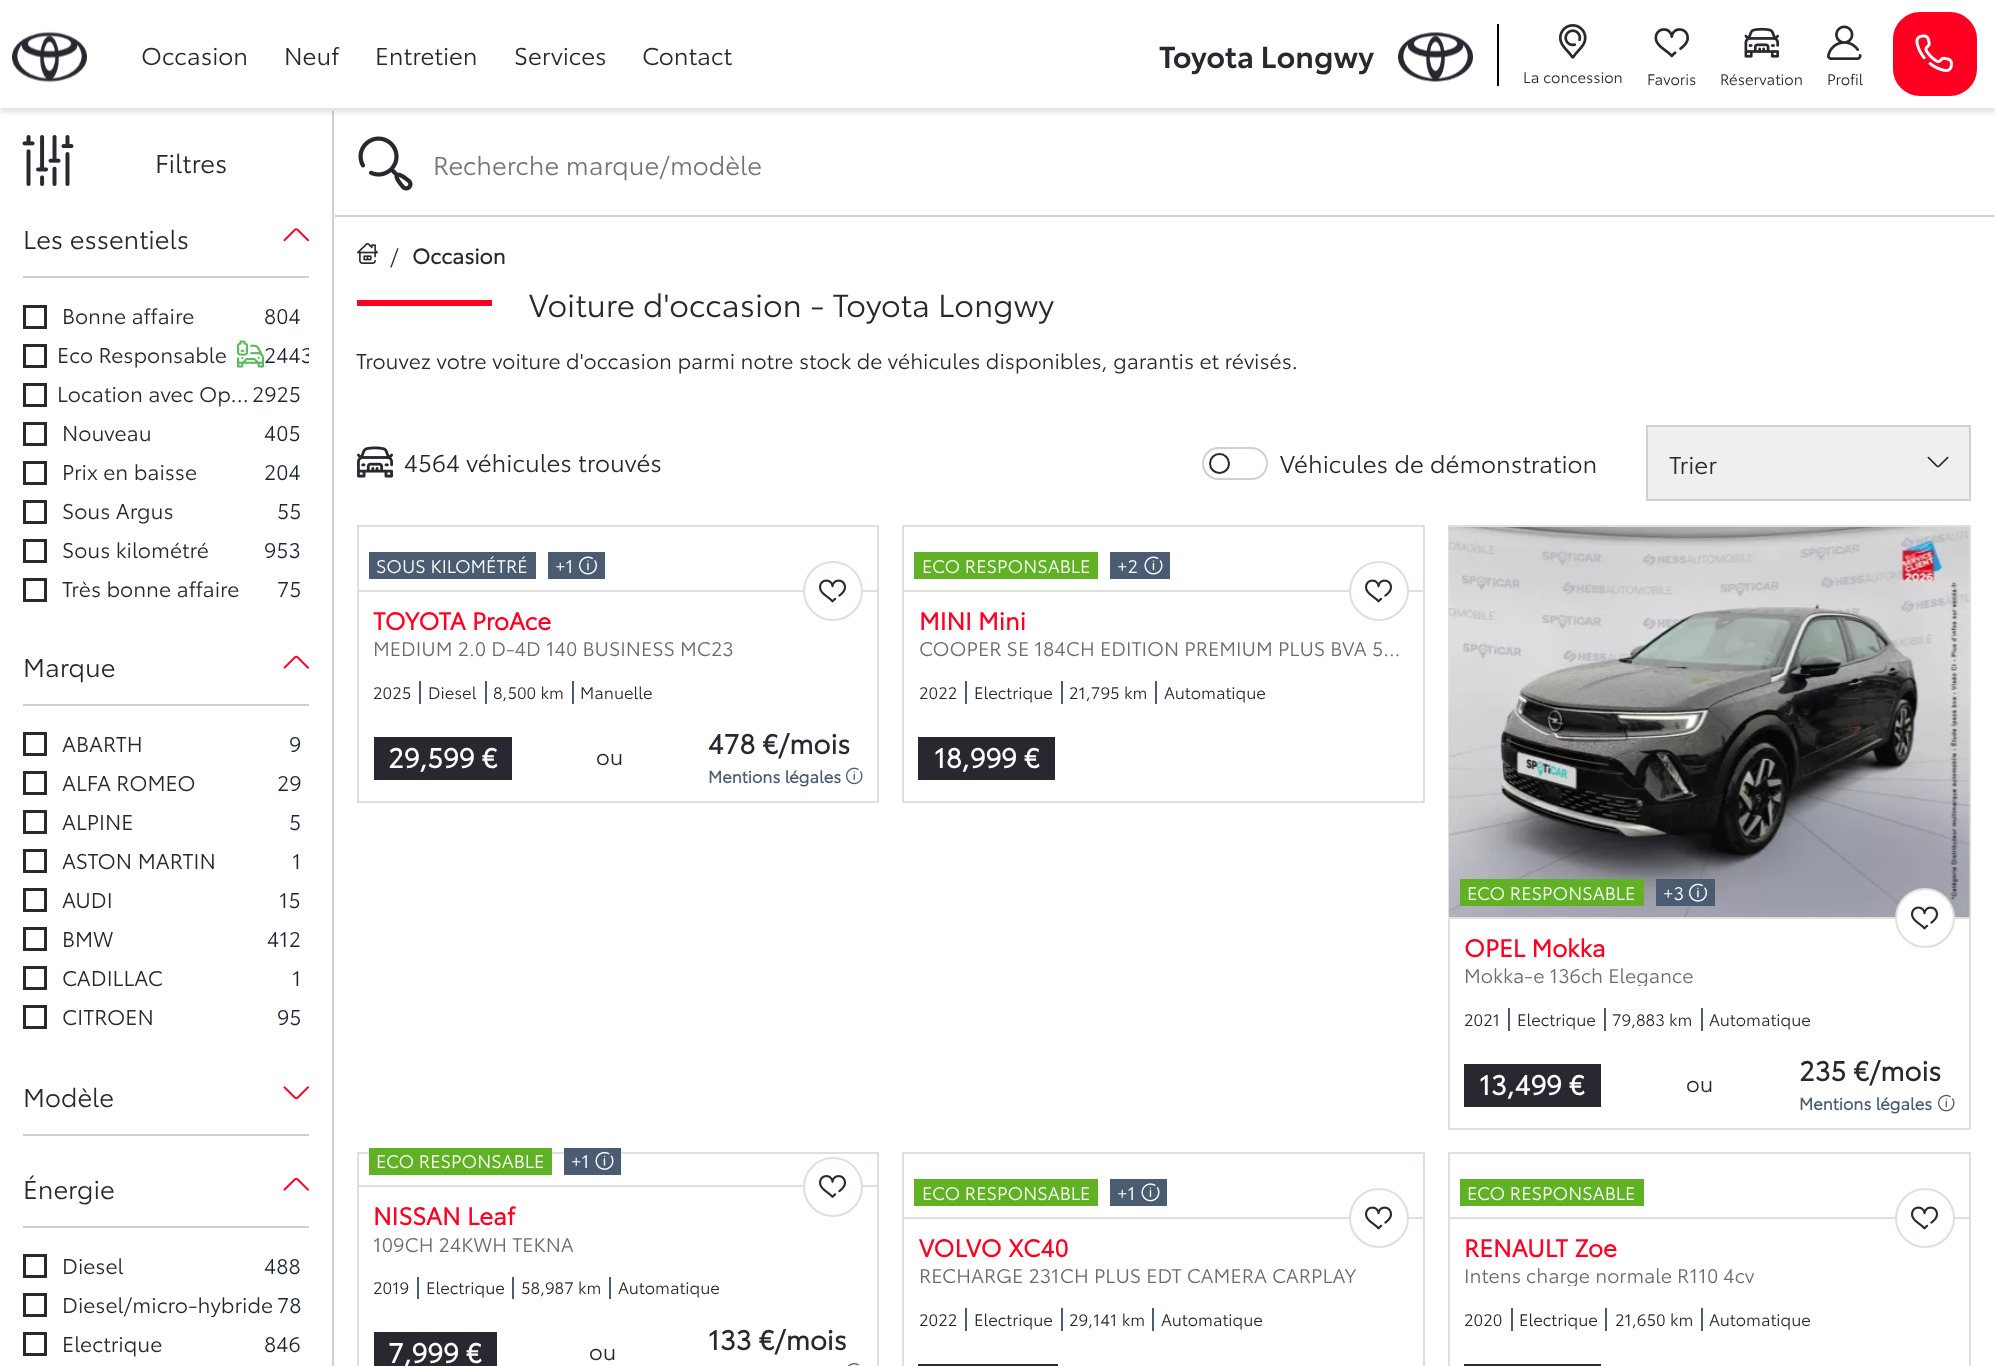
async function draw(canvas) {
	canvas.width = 1995;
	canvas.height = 1366;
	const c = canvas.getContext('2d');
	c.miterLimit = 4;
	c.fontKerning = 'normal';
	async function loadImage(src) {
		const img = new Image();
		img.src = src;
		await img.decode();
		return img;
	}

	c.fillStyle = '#fff';
	c.fillRect(0, 0, 1995, 1366);
	c.fillStyle = '#ced0d3';
	c.fillRect(332, 111, 2, 1255);
	c.save();
	c.beginPath();
	c.rect(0, 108, 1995, 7);
	c.clip();
	c.fillStyle = '#0000001a';
	c.filter = 'blur(2px)';
	c.beginPath();
	c.rect(0, 5, 1995, 108);
	c.fill();
	c.filter = 'none';
	c.restore();
	c.drawImage(await loadImage('img1.png'), 12, 31, 75, 52);
	c.font = '24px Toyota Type';
	c.fillStyle = '#282830';
	for (const [text, x, y] of [
		['Occasion', 141, 65],
		['Neuf', 284, 65],
		['Entretien', 375, 65],
		['Services', 514, 65],
		['Contact', 642, 65],
	]) {
		c.fillText(text, x, y);
	}
	c.font = '600 30px Toyota Type';
	c.fillText('Toyota Longwy', 1159, 68);
	c.drawImage(await loadImage('img2.png'), 1398, 32, 75, 50);
	c.fillStyle = '#000';
	c.fillRect(1497, 24, 2, 62);
	c.drawImage(await loadImage('img3.png'), 1559, 24, 28, 35);
	c.font = '15px Toyota Type';
	c.fillStyle = '#282830';
	c.fillText('La concession', 1523, 83);
	c.drawImage(await loadImage('img4.png'), 1654, 28, 35, 30);
	c.fillText('Favoris', 1647, 85);
	c.drawImage(await loadImage('img5.png'), 1744, 27, 35, 31);
	c.fillText('Réservation', 1720, 85);
	c.drawImage(await loadImage('img6.png'), 1827, 25, 35, 35);
	c.fillText('Profil', 1827, 85);
	c.fillStyle = '#f02';
	c.beginPath();
	c.roundRect(1896, 15, 78, 78, 24);
	c.fill();
	c.strokeStyle = '#f02';
	c.lineWidth = 6;
	c.stroke();
	c.drawImage(await loadImage('img7.png'), 1915, 34, 38, 38);
	c.drawImage(await loadImage('img8.png'), 22, 135, 52, 51);
	c.font = '25.5px Toyota Type';
	c.fillStyle = '#282830';
	c.fillText('Filtres', 155, 173);
	c.fillStyle = '#ced0d3';
	c.fillRect(23, 276, 286, 2);
	c.fillStyle = '#282830';
	c.fillText('Les essentiels', 23, 249);
	c.drawImage(await loadImage('img9.png'), 283, 228, 26, 14);
	c.strokeStyle = '#282830';
	c.lineWidth = 3;
	c.strokeRect(24.5, 306.5, 21, 21);
	c.font = '21px Toyota Type';
	c.fillText('Bonne affaire', 62, 324);
	c.fillStyle = '#1d2433';
	c.fillText('804', 264, 324);
	c.strokeRect(24.5, 345.5, 21, 21);
	c.fillStyle = '#282830';
	c.fillText('Eco Responsable', 57, 363);
	c.drawImage(await loadImage('img10.png'), 237, 340, 27, 28);
	c.save();
	c.beginPath();
	c.rect(23, 302, 286, 312);
	c.clip();
	c.fillStyle = '#1d2433';
	c.fillText('2443', 264, 363);
	c.restore();
	c.strokeRect(24.5, 384.5, 21, 21);
	c.fillText('Location avec Op…', 57, 402);
	c.fillStyle = '#1d2433';
	c.fillText('2925', 252, 402);
	c.strokeRect(24.5, 423.5, 21, 21);
	c.fillStyle = '#282830';
	c.fillText('Nouveau', 62, 441);
	c.fillStyle = '#1d2433';
	c.fillText('405', 264, 441);
	c.strokeRect(24.5, 462.5, 21, 21);
	c.fillStyle = '#282830';
	c.fillText('Prix en baisse', 62, 480);
	c.fillStyle = '#1d2433';
	c.fillText('204', 264, 480);
	c.strokeRect(24.5, 501.5, 21, 21);
	c.fillStyle = '#282830';
	c.fillText('Sous Argus', 62, 519);
	c.fillStyle = '#1d2433';
	c.fillText('55', 277, 519);
	c.strokeRect(24.5, 540.5, 21, 21);
	c.fillStyle = '#282830';
	c.fillText('Sous kilométré', 62, 558);
	c.fillStyle = '#1d2433';
	c.fillText('953', 264, 558);
	c.strokeRect(24.5, 579.5, 21, 21);
	c.fillStyle = '#282830';
	c.fillText('Très bonne affaire', 62, 597);
	c.fillStyle = '#1d2433';
	c.fillText('75', 277, 597);
	c.fillStyle = '#ced0d3';
	c.fillRect(23, 704, 286, 2);
	c.font = '25.5px Toyota Type';
	c.fillStyle = '#282830';
	c.fillText('Marque', 23, 677);
	c.drawImage(await loadImage('img11.png'), 283, 655, 26, 14);
	c.strokeRect(24.5, 733.5, 21, 21);
	c.font = '21px Toyota Type';
	c.fillText('ABARTH', 62, 752);
	c.fillStyle = '#1d2433';
	c.fillText('9', 289, 752);
	c.strokeRect(24.5, 772.5, 21, 21);
	c.fillStyle = '#282830';
	c.fillText('ALFA ROMEO', 62, 791);
	c.fillStyle = '#1d2433';
	c.fillText('29', 277, 791);
	c.strokeRect(24.5, 811.5, 21, 21);
	c.fillStyle = '#282830';
	c.fillText('ALPINE', 62, 830);
	c.fillStyle = '#1d2433';
	c.fillText('5', 289, 830);
	c.strokeRect(24.5, 850.5, 21, 21);
	c.fillStyle = '#282830';
	c.fillText('ASTON MARTIN', 62, 869);
	c.fillStyle = '#1d2433';
	c.fillText('1', 292, 869);
	c.strokeRect(24.5, 889.5, 21, 21);
	c.fillStyle = '#282830';
	c.fillText('AUDI', 62, 908);
	c.fillStyle = '#1d2433';
	c.fillText('15', 279, 908);
	c.strokeRect(24.5, 928.5, 21, 21);
	c.fillStyle = '#282830';
	c.fillText('BMW', 62, 947);
	c.fillStyle = '#1d2433';
	c.fillText('412', 267, 947);
	c.strokeRect(24.5, 967.5, 21, 21);
	c.fillStyle = '#282830';
	c.fillText('CADILLAC', 62, 986);
	c.fillStyle = '#1d2433';
	c.fillText('1', 292, 986);
	c.strokeRect(24.5, 1006.5, 21, 21);
	c.fillStyle = '#282830';
	c.fillText('CITROEN', 62, 1025);
	c.fillStyle = '#1d2433';
	c.fillText('95', 277, 1025);
	c.fillStyle = '#ced0d3';
	c.fillRect(23, 1134, 286, 2);
	c.font = '25.5px Toyota Type';
	c.fillStyle = '#282830';
	c.fillText('Modèle', 23, 1107);
	c.drawImage(await loadImage('img12.png'), 283, 1086, 26, 14);
	c.fillStyle = '#ced0d3';
	c.fillRect(23, 1226, 286, 2);
	c.fillStyle = '#282830';
	c.fillText('Énergie', 23, 1199);
	c.drawImage(await loadImage('img11.png'), 283, 1177, 26, 14);
	c.strokeRect(24.5, 1255.5, 21, 21);
	c.font = '21px Toyota Type';
	c.fillText('Diesel', 62, 1274);
	c.fillStyle = '#1d2433';
	c.fillText('488', 264, 1274);
	c.strokeRect(24.5, 1294.5, 21, 21);
	c.save();
	c.beginPath();
	c.rect(62, 1290, 211, 27);
	c.clip();
	c.fillStyle = '#282830';
	c.fillText('Diesel/micro-hybride', 62, 1313);
	c.restore();
	c.fillText('78', 277, 1313);
	c.strokeRect(24.5, 1333.5, 21, 21);
	c.fillStyle = '#282830';
	c.fillText('Electrique', 62, 1352);
	c.fillStyle = '#1d2433';
	c.fillText('846', 264, 1352);
	c.drawImage(await loadImage('img13.png'), 358, 136, 55, 55);
	c.fillStyle = '#ced0d3';
	c.fillRect(335, 215, 1659, 2);
	c.font = '25.5px Toyota Type';
	c.fillStyle = '#757575';
	c.fillText('Recherche marque/modèle', 433, 175);
	c.drawImage(await loadImage('img14.png'), 357, 243, 21, 21);
	c.font = '21px Toyota Type';
	c.fillStyle = '#282830';
	c.fillText('/', 390, 264);
	c.font = 'bold 21px Toyota Type';
	c.fillText('Occasion', 412, 264);
	c.fillStyle = '#f02';
	c.fillRect(357, 300, 135, 6);
	c.font = '31.5px Toyota Type';
	c.fillStyle = '#282830';
	c.fillText('Voiture d\'occasion - Toyota Longwy', 529, 317);
	c.font = '21px Toyota Type';
	c.fillText('Trouvez votre voiture d\'occasion parmi notre stock de véhicules disponibles, garantis et révisés.', 356, 369);
	c.drawImage(await loadImage('img15.png'), 357, 446, 36, 32);
	c.font = '24px Toyota Type';
	c.fillText('4564 véhicules trouvés', 404, 472);
	c.beginPath();
	c.roundRect(1203, 448, 64, 31, 15.5);
	c.strokeStyle = '#d0d0d0';
	c.lineWidth = 2;
	c.stroke();
	c.beginPath();
	c.arc(1219.5, 463.5, 9.5, 0, 2 * Math.PI);
	c.strokeStyle = '#282830';
	c.stroke();
	c.fillText('Véhicules de démonstration', 1280, 473);
	c.fillStyle = '#efefef';
	c.beginPath();
	c.rect(1647, 426, 323, 74);
	c.fill();
	c.strokeStyle = '#ced0d3';
	c.stroke();
	c.fillStyle = '#282830';
	c.fillText('Trier', 1669, 474);
	c.drawImage(await loadImage('img16.png'), 1927, 456, 22, 12);
	c.strokeStyle = '#e2ded9';
	c.strokeRect(358, 526, 520, 276);
	c.fillStyle = '#4b5b71';
	c.fillRect(369, 552, 167, 27);
	c.font = '18px Toyota Type';
	c.fillStyle = '#fff';
	c.fillText('SOUS KILOMÉTRÉ', 376, 573);
	c.fillStyle = '#4b5b71';
	c.fillRect(548, 552, 57, 27);
	c.fillStyle = '#fff';
	c.fillText('+1', 555, 573);
	c.drawImage(await loadImage('img17.png'), 579, 556, 18, 19);
	c.fillStyle = '#e2ded9';
	c.fillRect(359, 590, 519, 2);
	c.font = 'bold 24px Toyota Type';
	c.fillStyle = '#f02';
	c.fillText('TOYOTA ProAce', 373, 630);
	c.fillStyle = '#fff';
	c.beginPath();
	c.arc(833, 591, 29, 0, 2 * Math.PI);
	c.fill();
	c.stroke();
	c.drawImage(await loadImage('img18.png'), 819, 579, 27, 24);
	c.font = '19.5px Toyota Type';
	c.fillStyle = '#6a6b70';
	c.fillText('MEDIUM 2.0 D-4D 140 BUSINESS MC23', 373, 656);
	c.fillStyle = '#4b5b71';
	c.fillRect(419, 681, 2, 23);
	c.font = '16.5px Toyota Type';
	c.fillStyle = '#282830';
	c.fillText('2025', 373, 699);
	c.fillStyle = '#4b5b71';
	c.fillRect(485, 681, 2, 23);
	c.fillStyle = '#282830';
	c.fillText('Diesel', 428, 699);
	c.fillStyle = '#4b5b71';
	c.fillRect(572, 681, 2, 23);
	c.fillStyle = '#282830';
	c.fillText('8,500 km', 493, 699);
	c.fillText('Manuelle', 580, 699);
	c.fillRect(374, 737, 138, 43);
	c.font = 'bold 27px Toyota Type';
	c.fillStyle = '#fff';
	c.fillText('29,599 €', 388, 768);
	c.font = '22px Toyota Type';
	c.fillStyle = '#282830';
	c.fillText('ou', 596, 765);
	c.font = 'bold 27px Toyota Type';
	c.fillText('478 €/mois', 708, 754);
	c.font = 'bold 16.5px Toyota Type';
	c.fillStyle = '#4b5b71';
	c.fillText('Mentions légales', 708, 783);
	c.drawImage(await loadImage('img19.png'), 846, 767, 17, 18);
	c.strokeRect(903, 526, 521, 276);
	c.fillStyle = '#61b125';
	c.fillRect(914, 552, 184, 27);
	c.font = '18px Toyota Type';
	c.fillStyle = '#fff';
	c.fillText('ECO RESPONSABLE', 922, 573);
	c.fillStyle = '#4b5b71';
	c.fillRect(1110, 552, 60, 27);
	c.fillStyle = '#fff';
	c.fillText('+2', 1117, 573);
	c.drawImage(await loadImage('img20.png'), 1144, 556, 19, 19);
	c.fillStyle = '#e2ded9';
	c.fillRect(903, 590, 521, 2);
	c.font = 'bold 24px Toyota Type';
	c.fillStyle = '#f02';
	c.fillText('MINI Mini', 919, 630);
	c.fillStyle = '#fff';
	c.beginPath();
	c.arc(1379, 591, 29, 0, 2 * Math.PI);
	c.fill();
	c.stroke();
	c.drawImage(await loadImage('img18.png'), 1365, 579, 27, 24);
	c.font = '19.5px Toyota Type';
	c.fillStyle = '#6a6b70';
	c.fillText('COOPER SE 184CH EDITION PREMIUM PLUS BVA 5…', 919, 656);
	c.fillStyle = '#4b5b71';
	c.fillRect(965, 681, 2, 23);
	c.font = '16.5px Toyota Type';
	c.fillStyle = '#282830';
	c.fillText('2022', 919, 699);
	c.fillStyle = '#4b5b71';
	c.fillRect(1061, 681, 2, 23);
	c.fillStyle = '#282830';
	c.fillText('Electrique', 974, 699);
	c.fillStyle = '#4b5b71';
	c.fillRect(1155, 681, 2, 23);
	c.fillStyle = '#282830';
	c.fillText('21,795 km', 1069, 699);
	c.fillText('Automatique', 1164, 699);
	c.fillRect(918, 737, 137, 43);
	c.font = 'bold 27px Toyota Type';
	c.fillStyle = '#fff';
	c.fillText('18,999 €', 934, 768);
	c.strokeRect(1449, 526, 521, 603);
	c.drawImage(await loadImage('img21.png'), 1449, 527, 521, 390);
	c.fillStyle = '#61b125';
	c.fillRect(1460, 879, 184, 27);
	c.font = '18px Toyota Type';
	c.fillStyle = '#fff';
	c.fillText('ECO RESPONSABLE', 1467, 900);
	c.fillStyle = '#4b5b71';
	c.fillRect(1656, 879, 59, 27);
	c.fillStyle = '#fff';
	c.fillText('+3', 1663, 900);
	c.drawImage(await loadImage('img22.png'), 1689, 883, 18, 19);
	c.fillStyle = '#e2ded9';
	c.fillRect(1449, 917, 521, 2);
	c.font = 'bold 24px Toyota Type';
	c.fillStyle = '#f02';
	c.fillText('OPEL Mokka', 1464, 957);
	c.fillStyle = '#fff';
	c.beginPath();
	c.arc(1925, 918, 29, 0, 2 * Math.PI);
	c.fill();
	c.stroke();
	c.drawImage(await loadImage('img18.png'), 1911, 906, 27, 24);
	c.save();
	c.beginPath();
	c.rect(1464, 965, 491, 21);
	c.clip();
	c.font = '19.5px Toyota Type';
	c.fillStyle = '#6a6b70';
	c.fillText('Mokka-e 136ch Elegance', 1464, 983);
	c.restore();
	c.fillStyle = '#4b5b71';
	c.fillRect(1508, 1008, 2, 23);
	c.font = '16.5px Toyota Type';
	c.fillStyle = '#282830';
	c.fillText('2021', 1464, 1026);
	c.fillStyle = '#4b5b71';
	c.fillRect(1604, 1008, 2, 23);
	c.fillStyle = '#282830';
	c.fillText('Electrique', 1517, 1026);
	c.fillStyle = '#4b5b71';
	c.fillRect(1701, 1008, 2, 23);
	c.fillStyle = '#282830';
	c.fillText('79,883 km', 1612, 1026);
	c.fillText('Automatique', 1709, 1026);
	c.fillRect(1464, 1064, 137, 43);
	c.font = 'bold 27px Toyota Type';
	c.fillStyle = '#fff';
	c.fillText('13,499 €', 1479, 1095);
	c.font = '22px Toyota Type';
	c.fillStyle = '#282830';
	c.fillText('ou', 1686, 1092);
	c.font = 'bold 27px Toyota Type';
	c.fillText('235 €/mois', 1799, 1081);
	c.font = 'bold 16.5px Toyota Type';
	c.fillStyle = '#4b5b71';
	c.fillText('Mentions légales', 1799, 1110);
	c.drawImage(await loadImage('img23.png'), 1938, 1094, 17, 18);
	c.strokeRect(358, 1153, 520, 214);
	c.fillStyle = '#61b125';
	c.fillRect(369, 1148, 183, 27);
	c.font = '18px Toyota Type';
	c.fillStyle = '#fff';
	c.fillText('ECO RESPONSABLE', 376, 1168);
	c.fillStyle = '#4b5b71';
	c.fillRect(564, 1148, 57, 27);
	c.fillStyle = '#fff';
	c.fillText('+1', 571, 1168);
	c.drawImage(await loadImage('img24.png'), 595, 1151, 19, 19);
	c.fillStyle = '#e2ded9';
	c.fillRect(359, 1185, 519, 2);
	c.font = 'bold 24px Toyota Type';
	c.fillStyle = '#f02';
	c.fillText('NISSAN Leaf', 373, 1225);
	c.fillStyle = '#fff';
	c.beginPath();
	c.arc(833, 1187, 29, 0, 2 * Math.PI);
	c.fill();
	c.stroke();
	c.drawImage(await loadImage('img25.png'), 819, 1175, 27, 23);
	c.font = '19.5px Toyota Type';
	c.fillStyle = '#6a6b70';
	c.fillText('109CH 24KWH TEKNA', 373, 1252);
	c.fillStyle = '#4b5b71';
	c.fillRect(417, 1277, 2, 22);
	c.font = '16.5px Toyota Type';
	c.fillStyle = '#282830';
	c.fillText('2019', 373, 1294);
	c.fillStyle = '#4b5b71';
	c.fillRect(512, 1277, 2, 22);
	c.fillStyle = '#282830';
	c.fillText('Electrique', 426, 1294);
	c.fillStyle = '#4b5b71';
	c.fillRect(609, 1277, 2, 22);
	c.fillStyle = '#282830';
	c.fillText('58,987 km', 521, 1294);
	c.fillText('Automatique', 618, 1294);
	c.fillRect(374, 1332, 123, 34);
	c.font = 'bold 27px Toyota Type';
	c.fillStyle = '#fff';
	c.fillText('7,999 €', 388, 1363);
	c.font = '22px Toyota Type';
	c.fillStyle = '#282830';
	c.fillText('ou', 589, 1360);
	c.font = 'bold 27px Toyota Type';
	c.fillText('133 €/mois', 708, 1350);
	c.drawImage(await loadImage('img26.png'), 848, 1363, 11, 3);
	c.strokeRect(903, 1153, 521, 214);
	c.fillStyle = '#61b125';
	c.fillRect(914, 1179, 184, 27);
	c.font = '18px Toyota Type';
	c.fillStyle = '#fff';
	c.fillText('ECO RESPONSABLE', 922, 1200);
	c.fillStyle = '#4b5b71';
	c.fillRect(1110, 1179, 57, 27);
	c.fillStyle = '#fff';
	c.fillText('+1', 1117, 1200);
	c.drawImage(await loadImage('img27.png'), 1141, 1183, 19, 19);
	c.fillStyle = '#e2ded9';
	c.fillRect(903, 1217, 521, 2);
	c.font = 'bold 24px Toyota Type';
	c.fillStyle = '#f02';
	c.fillText('VOLVO XC40', 919, 1257);
	c.fillStyle = '#fff';
	c.beginPath();
	c.arc(1379, 1218, 29, 0, 2 * Math.PI);
	c.fill();
	c.stroke();
	c.drawImage(await loadImage('img18.png'), 1365, 1206, 27, 24);
	c.font = '19.5px Toyota Type';
	c.fillStyle = '#6a6b70';
	c.fillText('RECHARGE 231CH PLUS EDT CAMERA CARPLAY', 919, 1283);
	c.fillStyle = '#4b5b71';
	c.fillRect(965, 1308, 2, 23);
	c.font = '16.5px Toyota Type';
	c.fillStyle = '#282830';
	c.fillText('2022', 919, 1326);
	c.fillStyle = '#4b5b71';
	c.fillRect(1061, 1308, 2, 23);
	c.fillStyle = '#282830';
	c.fillText('Electrique', 974, 1326);
	c.fillStyle = '#4b5b71';
	c.fillRect(1152, 1308, 2, 23);
	c.fillStyle = '#282830';
	c.fillText('29,141 km', 1069, 1326);
	c.fillText('Automatique', 1161, 1326);
	c.fillRect(918, 1364, 140, 2);
	c.strokeRect(1449, 1153, 521, 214);
	c.fillStyle = '#61b125';
	c.fillRect(1460, 1179, 184, 27);
	c.font = '18px Toyota Type';
	c.fillStyle = '#fff';
	c.fillText('ECO RESPONSABLE', 1467, 1200);
	c.fillStyle = '#e2ded9';
	c.fillRect(1449, 1217, 521, 2);
	c.font = 'bold 24px Toyota Type';
	c.fillStyle = '#f02';
	c.fillText('RENAULT Zoe', 1464, 1257);
	c.fillStyle = '#fff';
	c.beginPath();
	c.arc(1925, 1218, 29, 0, 2 * Math.PI);
	c.fill();
	c.stroke();
	c.drawImage(await loadImage('img18.png'), 1911, 1206, 27, 24);
	c.save();
	c.beginPath();
	c.rect(1464, 1265, 491, 21);
	c.clip();
	c.font = '19.5px Toyota Type';
	c.fillStyle = '#6a6b70';
	c.fillText('Intens charge normale R110 4cv', 1464, 1283);
	c.restore();
	c.fillStyle = '#4b5b71';
	c.fillRect(1511, 1308, 2, 23);
	c.font = '16.5px Toyota Type';
	c.fillStyle = '#282830';
	c.fillText('2020', 1464, 1326);
	c.fillStyle = '#4b5b71';
	c.fillRect(1605, 1308, 2, 23);
	c.fillStyle = '#282830';
	c.fillText('Electrique', 1519, 1326);
	c.fillStyle = '#4b5b71';
	c.fillRect(1701, 1308, 2, 23);
	c.fillStyle = '#282830';
	c.fillText('21,650 km', 1615, 1326);
	c.fillText('Automatique', 1709, 1326);
	c.fillRect(1464, 1364, 137, 2);
}

draw(document.querySelector('canvas'));
